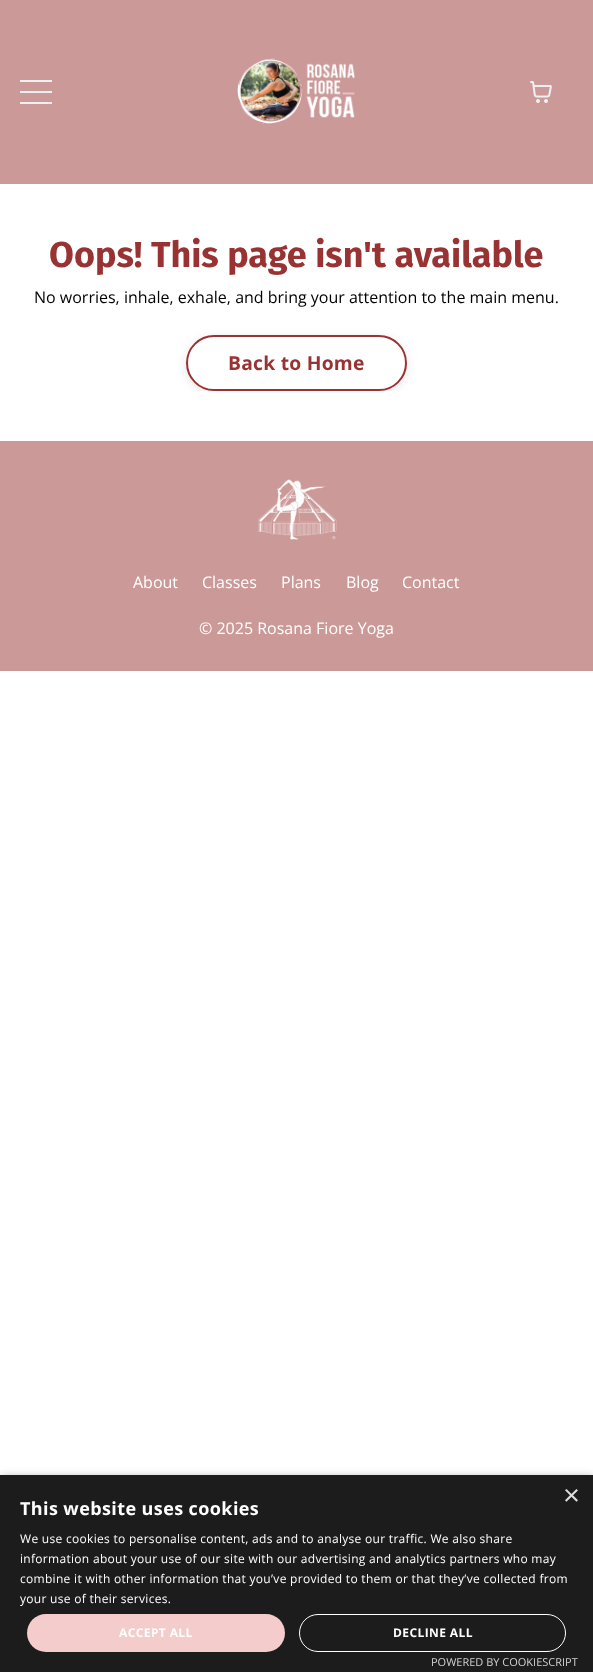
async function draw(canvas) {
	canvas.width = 593;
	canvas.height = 1672;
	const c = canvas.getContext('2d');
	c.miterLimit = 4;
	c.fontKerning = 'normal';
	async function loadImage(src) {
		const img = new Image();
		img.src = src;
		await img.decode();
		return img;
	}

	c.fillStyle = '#fff';
	c.fillRect(0, 0, 593, 1672);
	for (const [x, y, w, h, color] of [
		[0, 0, 593, 184, '#c99'],
		[20, 80, 32, 2, '#ecf0f1'],
		[20, 91, 32, 2, '#ecf0f1'],
		[20, 102, 32, 2, '#ecf0f1'],
	]) {
		c.fillStyle = color;
		c.fillRect(x, y, w, h);
	}
	c.drawImage(await loadImage('img1.png'), 237, 58, 118, 66);
	c.drawImage(await loadImage('img2.png'), 530, 81, 22, 22);
	c.font = 'bold 36px Fira Sans';
	c.fillStyle = '#933';
	c.fillText('Oops! This page isn\'t available', 49, 267);
	c.font = '16px Open Sans';
	c.fillStyle = '#000';
	c.fillText('No worries, inhale, exhale, and bring your attention to the main menu.', 34, 303);
	c.save();
	c.beginPath();
	c.roundRect(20, 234, 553, 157, 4);
	c.clip();
	c.beginPath();
	c.moveTo(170, 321);
	c.lineTo(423, 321);
	c.lineTo(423, 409);
	c.lineTo(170, 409);
	c.closePath();
	c.moveTo(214, 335);
	c.lineTo(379, 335);
	c.bezierCurveTo(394.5, 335, 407, 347.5, 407, 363);
	c.bezierCurveTo(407, 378.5, 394.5, 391, 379, 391);
	c.lineTo(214, 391);
	c.bezierCurveTo(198.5, 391, 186, 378.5, 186, 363);
	c.bezierCurveTo(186, 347.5, 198.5, 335, 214, 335);
	c.closePath();
	c.clip('evenodd');
	c.fillStyle = '#0000001a';
	c.filter = 'blur(5px)';
	c.beginPath();
	c.roundRect(186, 337, 221, 56, 28);
	c.fill();
	c.filter = 'none';
	c.restore();
	c.beginPath();
	c.roundRect(187, 336, 219, 54, 27);
	c.strokeStyle = '#933';
	c.lineWidth = 2;
	c.stroke();
	c.letterSpacing = '0.25px';
	c.font = 'bold 19.25px Open Sans';
	c.fillStyle = '#933';
	c.fillText('Back to Home', 228, 370);
	c.fillStyle = '#c99';
	c.fillRect(0, 441, 593, 230);
	c.drawImage(await loadImage('img3.png'), 258, 479, 79, 61);
	c.letterSpacing = '0px';
	c.font = '16px Open Sans';
	c.fillStyle = '#fff';
	for (const [text, x, y] of [
		['About', 133, 588],
		['Classes', 202, 588],
		['Plans', 281, 588],
		['Blog', 346, 588],
		['Contact', 402, 588],
		['© 2025 Rosana Fiore Yoga', 199, 634],
	]) {
		c.fillText(text, x, y);
	}
	c.fillStyle = '#00000059';
	c.filter = 'blur(4px)';
	c.beginPath();
	c.rect(1, 1477, 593, 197);
	c.fill();
	c.filter = 'none';
	c.fillStyle = '#1c1c1c';
	c.fillRect(0, 1475, 593, 197);
	c.font = '29px Liberation Sans';
	c.fillStyle = '#ddd';
	c.fillText('×', 563, 1505);
	c.letterSpacing = '0.4px';
	c.font = 'bold 18px Open Sans';
	c.fillStyle = '#fff';
	c.fillText('This website uses cookies', 20, 1515);
	c.letterSpacing = '0.3px';
	c.font = '12px Open Sans';
	for (const [text, x, y] of [
		['We use cookies to personalise content, ads and to analyse our traffic. We also share', 20, 1543],
		['information about your use of our site with our advertising and analytics partners who may', 20, 1563],
		['combine it with other information that you’ve provided to them or that they’ve collected from', 20, 1583],
		['your use of their services.', 20, 1603],
	]) {
		c.fillText(text, x, y);
	}
	c.fillStyle = '#f4cccc';
	c.beginPath();
	c.roundRect(27, 1614, 258, 38, 19);
	c.fill();
	c.letterSpacing = '0.4px';
	c.font = 'bold 12px Open Sans';
	c.fillStyle = '#fff';
	c.fillText('ACCEPT ALL', 119, 1637);
	c.beginPath();
	c.roundRect(299.5, 1614.5, 266, 37, 18.5);
	c.strokeStyle = '#fff';
	c.lineWidth = 1;
	c.stroke();
	c.fillText('DECLINE ALL', 393, 1637);
	c.letterSpacing = '0px';
	c.font = '11px Open Sans';
	c.fillStyle = '#d2d2d2';
	c.fillText('POWERED BY COOKIESCRIPT', 431, 1666);
}

draw(document.querySelector('canvas'));
